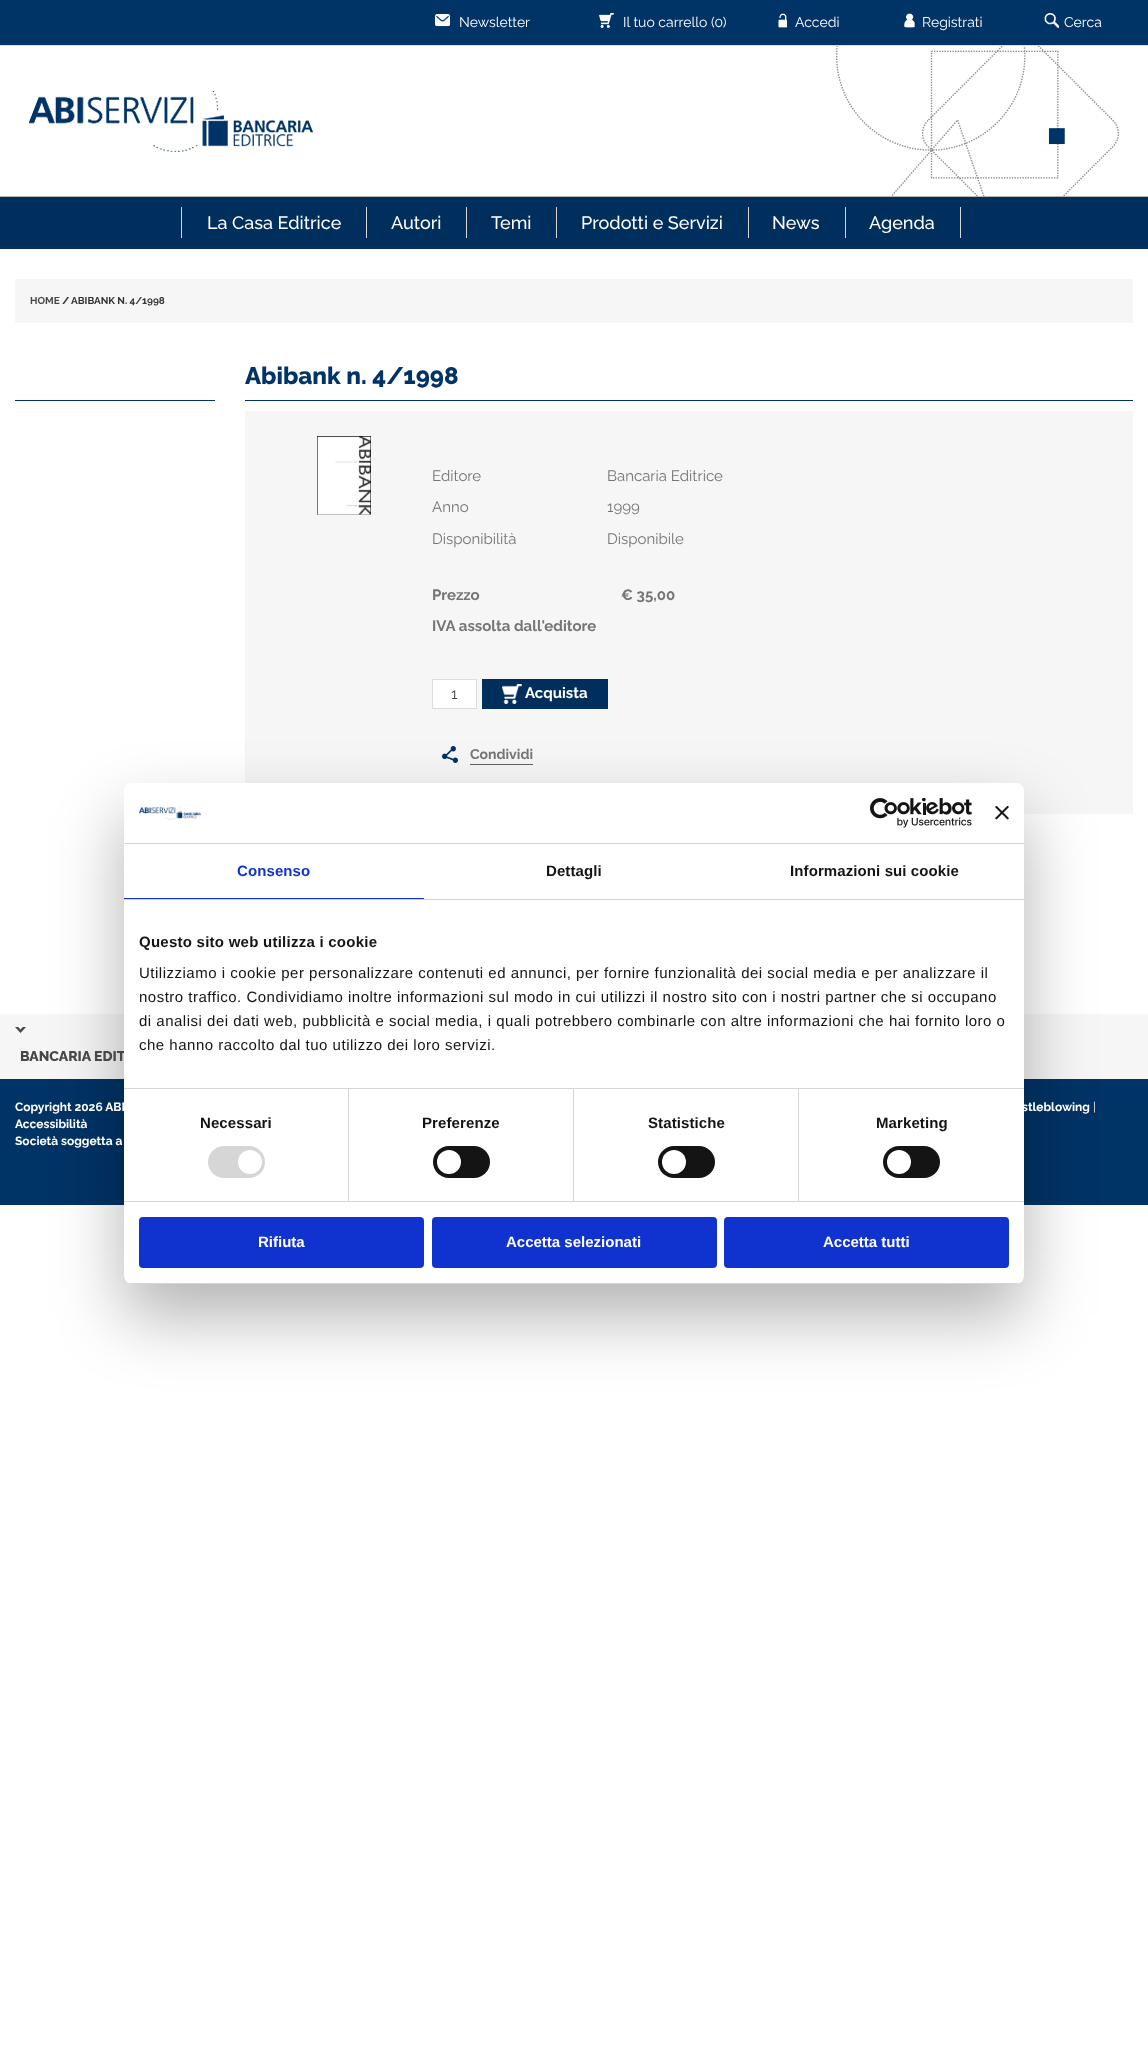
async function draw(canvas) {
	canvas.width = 1148;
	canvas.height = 2066;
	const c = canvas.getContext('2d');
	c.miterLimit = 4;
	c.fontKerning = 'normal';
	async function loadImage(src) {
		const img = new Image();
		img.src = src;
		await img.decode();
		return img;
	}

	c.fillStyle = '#fff';
	c.fillRect(0, 0, 1148, 2066);
	c.fillStyle = '#036';
	c.fillRect(0, 0, 1148, 45);
	c.fillStyle = '#ddd';
	c.fillRect(0, 45, 1148, 1);
	c.drawImage(await loadImage('img1.png'), 435, 14, 15, 13);
	c.font = '100 14px "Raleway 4"';
	c.fillStyle = '#fff';
	c.fillText('Newsletter', 459, 27);
	c.drawImage(await loadImage('img2.png'), 599, 13, 15, 15);
	c.fillText('Il tuo carrello (0)', 623, 27);
	c.drawImage(await loadImage('img3.png'), 778, 13, 9, 15);
	c.fillText('Accedi', 795, 27);
	c.drawImage(await loadImage('img4.png'), 904, 13, 11, 15);
	c.fillText('Registrati', 922, 27);
	c.drawImage(await loadImage('img5.png'), 1044, 13, 15, 15);
	c.fillText('Cerca', 1064, 27);
	c.fillStyle = '#b5b5b5';
	c.fillRect(0, 196, 1148, 1);
	c.drawImage(await loadImage('img6.png'), 29, 91, 284, 61);
	c.drawImage(await loadImage('img7.png'), 836, 46, 283, 150);
	c.fillStyle = '#002f5d';
	c.fillRect(0, 197, 1148, 52);
	c.font = '100 18px "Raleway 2"';
	c.fillStyle = '#fff';
	c.fillText('La Casa Editrice', 207, 229);
	c.fillStyle = '#d9d5d6';
	c.fillRect(366, 207, 1, 31);
	c.fillRect(181, 207, 1, 31);
	c.fillStyle = '#fff';
	c.fillText('Autori', 391, 229);
	c.fillStyle = '#d9d5d6';
	c.fillRect(466, 207, 1, 31);
	c.fillStyle = '#fff';
	c.fillText('Temi', 491, 229);
	c.fillStyle = '#d9d5d6';
	c.fillRect(556, 207, 1, 31);
	c.fillStyle = '#fff';
	c.fillText('Prodotti e Servizi', 581, 229);
	c.fillStyle = '#d9d5d6';
	c.fillRect(748, 207, 1, 31);
	c.fillStyle = '#fff';
	c.fillText('News', 772, 229);
	c.fillStyle = '#d9d5d6';
	c.fillRect(845, 207, 1, 31);
	c.fillStyle = '#fff';
	c.fillText('Agenda', 869, 229);
	c.fillStyle = '#d9d5d6';
	c.fillRect(960, 207, 1, 31);
	c.fillStyle = '#f6f6f6';
	c.fillRect(15, 279, 1118, 44);
	c.font = '100 10px "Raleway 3"';
	c.fillStyle = '#474747';
	c.fillText('HOME', 30, 304);
	c.font = '100 10px Raleway';
	c.fillStyle = '#333';
	c.fillText('/', 62, 304);
	c.font = '100 10px "Raleway 3"';
	c.fillText('ABIBANK N. 4/1998', 71, 304);
	c.fillStyle = '#036';
	c.fillRect(15, 400, 200, 1);
	c.font = '100 24px Raleway';
	c.fillText('Abibank n. 4/1998', 245, 384);
	c.fillRect(245, 400, 888, 1);
	c.fillStyle = '#f6f6f6';
	c.fillRect(245, 411, 888, 403);
	c.drawImage(await loadImage('img8.png'), 317, 436, 54, 79);
	c.font = '100 15px "Raleway 4"';
	c.fillStyle = '#757575';
	for (const [text, x, y] of [
		['Editore', 432, 481],
		['Bancaria Editrice', 607, 481],
		['Anno', 432, 512],
		['1999', 607, 512],
		['Disponibilità', 432, 544],
		['Disponibile', 607, 544],
	]) {
		c.fillText(text, x, y);
	}
	c.font = '100 15px "Raleway 3"';
	for (const [text, x, y] of [
		['Prezzo', 432, 600],
		['€ 35,00', 621, 600],
		['IVA assolta dall\'editore', 432, 631],
	]) {
		c.fillText(text, x, y);
	}
	c.fillStyle = '#fff';
	c.beginPath();
	c.rect(432.5, 679.5, 44, 29);
	c.fill();
	c.strokeStyle = '#ddd';
	c.stroke();
	c.font = '100 15px "Raleway 4"';
	c.fillStyle = '#474747';
	c.fillText('1', 451, 699);
	c.fillStyle = '#002f5d';
	c.fillRect(482, 679, 126, 30);
	c.drawImage(await loadImage('img9.png'), 502, 684, 20, 20);
	c.font = '100 15px "Raleway 3"';
	c.fillStyle = '#fff';
	c.fillText('Acquista', 525, 698);
	c.drawImage(await loadImage('img10.png'), 442, 746, 16, 17);
	c.font = '100 14px "Raleway 3"';
	c.fillStyle = '#757575';
	c.fillText('Condividi', 470, 759);
	c.fillStyle = '#616161';
	c.fillRect(470, 764, 63, 1);
	c.fillStyle = '#f6f6f6';
	c.fillRect(0, 1014, 1148, 65);
	c.drawImage(await loadImage('img14.png'), 15, 1027, 11, 6);
	c.fillStyle = '#036';
	c.fillRect(0, 1079, 1148, 126);
	c.fillStyle = '#0000004d';
	c.filter = 'blur(34px)';
	c.beginPath();
	c.roundRect(124, 815, 900, 501, 8);
	c.fill();
	c.filter = 'none';
	c.font = '100 14px Raleway';
	c.fillStyle = '#474747';
	c.fillText('BANCARIA EDIT', 20, 1061);
	c.fillStyle = '#fff';
	c.beginPath();
	c.roundRect(124, 783, 900, 501, 8);
	c.fill();
	c.fillStyle = '#d6d6d6';
	c.fillRect(124, 843, 900, 1);
	c.drawImage(await loadImage('img11.png'), 139, 806, 62, 14);
	c.drawImage(await loadImage('img12.png'), 870, 798, 102, 30);
	c.drawImage(await loadImage('img13.png'), 995, 806, 14, 14);
	c.fillRect(124, 899, 900, 1);
	c.fillStyle = '#1032cf';
	c.fillRect(124, 898, 300, 1);
	c.letterSpacing = '0.1px';
	c.font = 'bold 15px Liberation Sans';
	c.fillText('Consenso', 237, 876);
	c.fillStyle = '#141414';
	c.fillText('Dettagli', 546, 876);
	c.fillText('Informazioni sui cookie', 790, 876);
	c.fillStyle = '#d6d6d6';
	c.fillRect(124, 1088, 900, 1);
	c.letterSpacing = '0.25px';
	c.fillStyle = '#141414';
	c.fillText('Questo sito web utilizza i cookie', 139, 947);
	c.letterSpacing = '0.5px';
	c.font = '15px Liberation Sans';
	for (const [text, x, y] of [
		['Utilizziamo i cookie per personalizzare contenuti ed annunci, per fornire funzionalità dei social media e per analizzare il', 139, 978],
		['nostro traffico. Condividiamo inoltre informazioni sul modo in cui utilizzi il nostro sito con i nostri partner che si occupano', 139, 1002],
		['di analisi dei dati web, pubblicità e social media, i quali potrebbero combinarle con altre informazioni che hai fornito loro o', 139, 1026],
		['che hanno raccolto dal tuo utilizzo dei loro servizi.', 139, 1050],
	]) {
		c.fillText(text, x, y);
	}
	c.fillStyle = '#d6d6d6';
	c.fillRect(124, 1201, 900, 1);
	c.fillRect(348, 1089, 1, 112);
	c.letterSpacing = '0.1px';
	c.font = 'bold 15px Liberation Sans';
	c.fillStyle = '#141414';
	c.fillText('Necessari', 200, 1128);
	c.fillStyle = '#d6d6d6';
	c.beginPath();
	c.roundRect(208, 1146, 57, 32, 16);
	c.fill();
	c.fillStyle = '#fff';
	c.beginPath();
	c.arc(250, 1162, 12, 0, 2 * Math.PI);
	c.fill();
	c.fillStyle = '#d6d6d6';
	c.fillRect(573, 1089, 1, 112);
	c.fillStyle = '#141414';
	c.fillText('Preferenze', 422, 1128);
	c.beginPath();
	c.roundRect(433, 1146, 57, 32, 16);
	c.fill();
	c.fillStyle = '#fff';
	c.beginPath();
	c.arc(449, 1162, 12, 0, 2 * Math.PI);
	c.fill();
	c.fillStyle = '#d6d6d6';
	c.fillRect(798, 1089, 1, 112);
	c.fillStyle = '#141414';
	c.fillText('Statistiche', 648, 1128);
	c.beginPath();
	c.roundRect(658, 1146, 57, 32, 16);
	c.fill();
	c.fillStyle = '#fff';
	c.beginPath();
	c.arc(674, 1162, 12, 0, 2 * Math.PI);
	c.fill();
	c.fillStyle = '#141414';
	c.fillText('Marketing', 876, 1128);
	c.beginPath();
	c.roundRect(883, 1146, 57, 32, 16);
	c.fill();
	c.fillStyle = '#fff';
	c.beginPath();
	c.arc(899, 1162, 12, 0, 2 * Math.PI);
	c.fill();
	c.save();
	c.beginPath();
	c.roundRect(124, 783, 900, 501, 8);
	c.clip();
	c.fillStyle = '#d6d6d6';
	c.fillRect(124, 1283, 900, 1);
	c.restore();
	c.fillStyle = '#1032cf';
	c.beginPath();
	c.roundRect(140, 1218, 283, 49, 3);
	c.fill();
	c.strokeStyle = '#1032cf';
	c.lineWidth = 2;
	c.stroke();
	c.letterSpacing = '0px';
	c.fillStyle = '#fff';
	c.fillText('Rifiuta', 258, 1247);
	c.fillStyle = '#1032cf';
	c.beginPath();
	c.roundRect(433, 1218, 283, 49, 3);
	c.fill();
	c.stroke();
	c.fillStyle = '#fff';
	c.fillText('Accetta selezionati', 506, 1247);
	c.fillStyle = '#1032cf';
	c.beginPath();
	c.roundRect(725, 1218, 283, 49, 3);
	c.fill();
	c.stroke();
	c.fillStyle = '#fff';
	c.fillText('Accetta tutti', 823, 1247);
	c.font = '100 12px "Raleway 3"';
	c.fillText('Copyright 2026 ABI', 15, 1111);
	c.fillText('stleblowing', 1022, 1111);
	c.font = '100 12px "Raleway 4"';
	c.fillText('|', 1093, 1111);
	c.font = '100 12px "Raleway 3"';
	c.fillText('Accessibilità', 15, 1128);
	c.fillText('Società soggetta a', 15, 1145);
}

draw(document.querySelector('canvas'));
